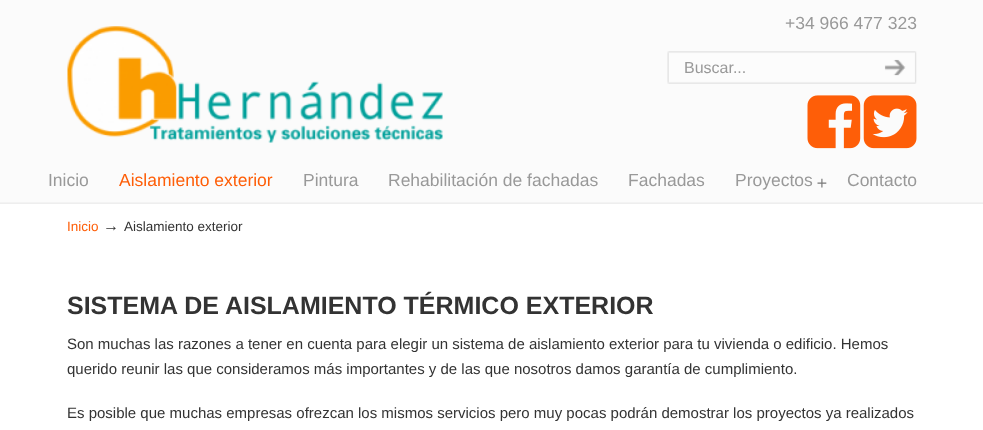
async function draw(canvas) {
	canvas.width = 983;
	canvas.height = 430;
	const c = canvas.getContext('2d');
	c.miterLimit = 4;
	c.fontKerning = 'normal';
	async function loadImage(src) {
		const img = new Image();
		img.src = src;
		await img.decode();
		return img;
	}

	c.fillStyle = '#fbfbfb';
	c.fillRect(0, 0, 983, 430);
	c.font = '17.5px Liberation Sans';
	c.fillStyle = '#999';
	c.fillText('+34 966 477 323', 785, 29);
	c.drawImage(await loadImage('img1.png'), 67, 26, 376, 117);
	c.drawImage(await loadImage('img2.png'), 667, 51, 200, 33);
	c.font = '16px Liberation Sans';
	c.fillText('Buscar...', 684, 73);
	c.drawImage(await loadImage('img3.png'), 866, 51, 51, 33);
	c.drawImage(await loadImage('img4.png'), 807, 95, 54, 54);
	c.drawImage(await loadImage('img5.png'), 863, 95, 54, 54);
	c.drawImage(await loadImage('img6.png'), 0, 202, 983, 2);
	c.font = '17.5px Liberation Sans';
	c.fillText('Inicio', 48, 186);
	c.fillStyle = '#fe5e08';
	c.fillText('Aislamiento exterior', 119, 186);
	c.fillStyle = '#999';
	for (const [text, x, y] of [
		['Pintura', 303, 186],
		['Rehabilitación de fachadas', 388, 186],
		['Fachadas', 628, 186],
		['Proyectos', 735, 186],
	]) {
		c.fillText(text, x, y);
	}
	c.drawImage(await loadImage('img7.png'), 817, 178, 10, 10);
	c.fillText('Contacto', 847, 186);
	c.fillStyle = '#fff';
	c.fillRect(0, 204, 983, 226);
	c.font = '13.5px Liberation Sans';
	c.fillStyle = '#fe5e08';
	c.fillText('Inicio', 67, 231);
	c.font = '16px Liberation Sans';
	c.fillStyle = '#333';
	c.fillText('→', 103, 231);
	c.font = '13.5px Liberation Sans';
	c.fillText('Aislamiento exterior', 124, 231);
	c.font = 'bold 25px Liberation Sans';
	c.fillText('SISTEMA DE AISLAMIENTO TÉRMICO EXTERIOR', 67, 314);
	c.font = '15px Liberation Sans';
	for (const [text, x, y] of [
		['Son muchas las razones a tener en cuenta para elegir un sistema de aislamiento exterior para tu vivienda o edificio. Hemos', 67, 349],
		['querido reunir las que consideramos más importantes y de las que nosotros damos garantía de cumplimiento.', 67, 374],
		['Es posible que muchas empresas ofrezcan los mismos servicios pero muy pocas podrán demostrar los proyectos ya realizados', 67, 418],
	]) {
		c.fillText(text, x, y);
	}
}

draw(document.querySelector('canvas'));
